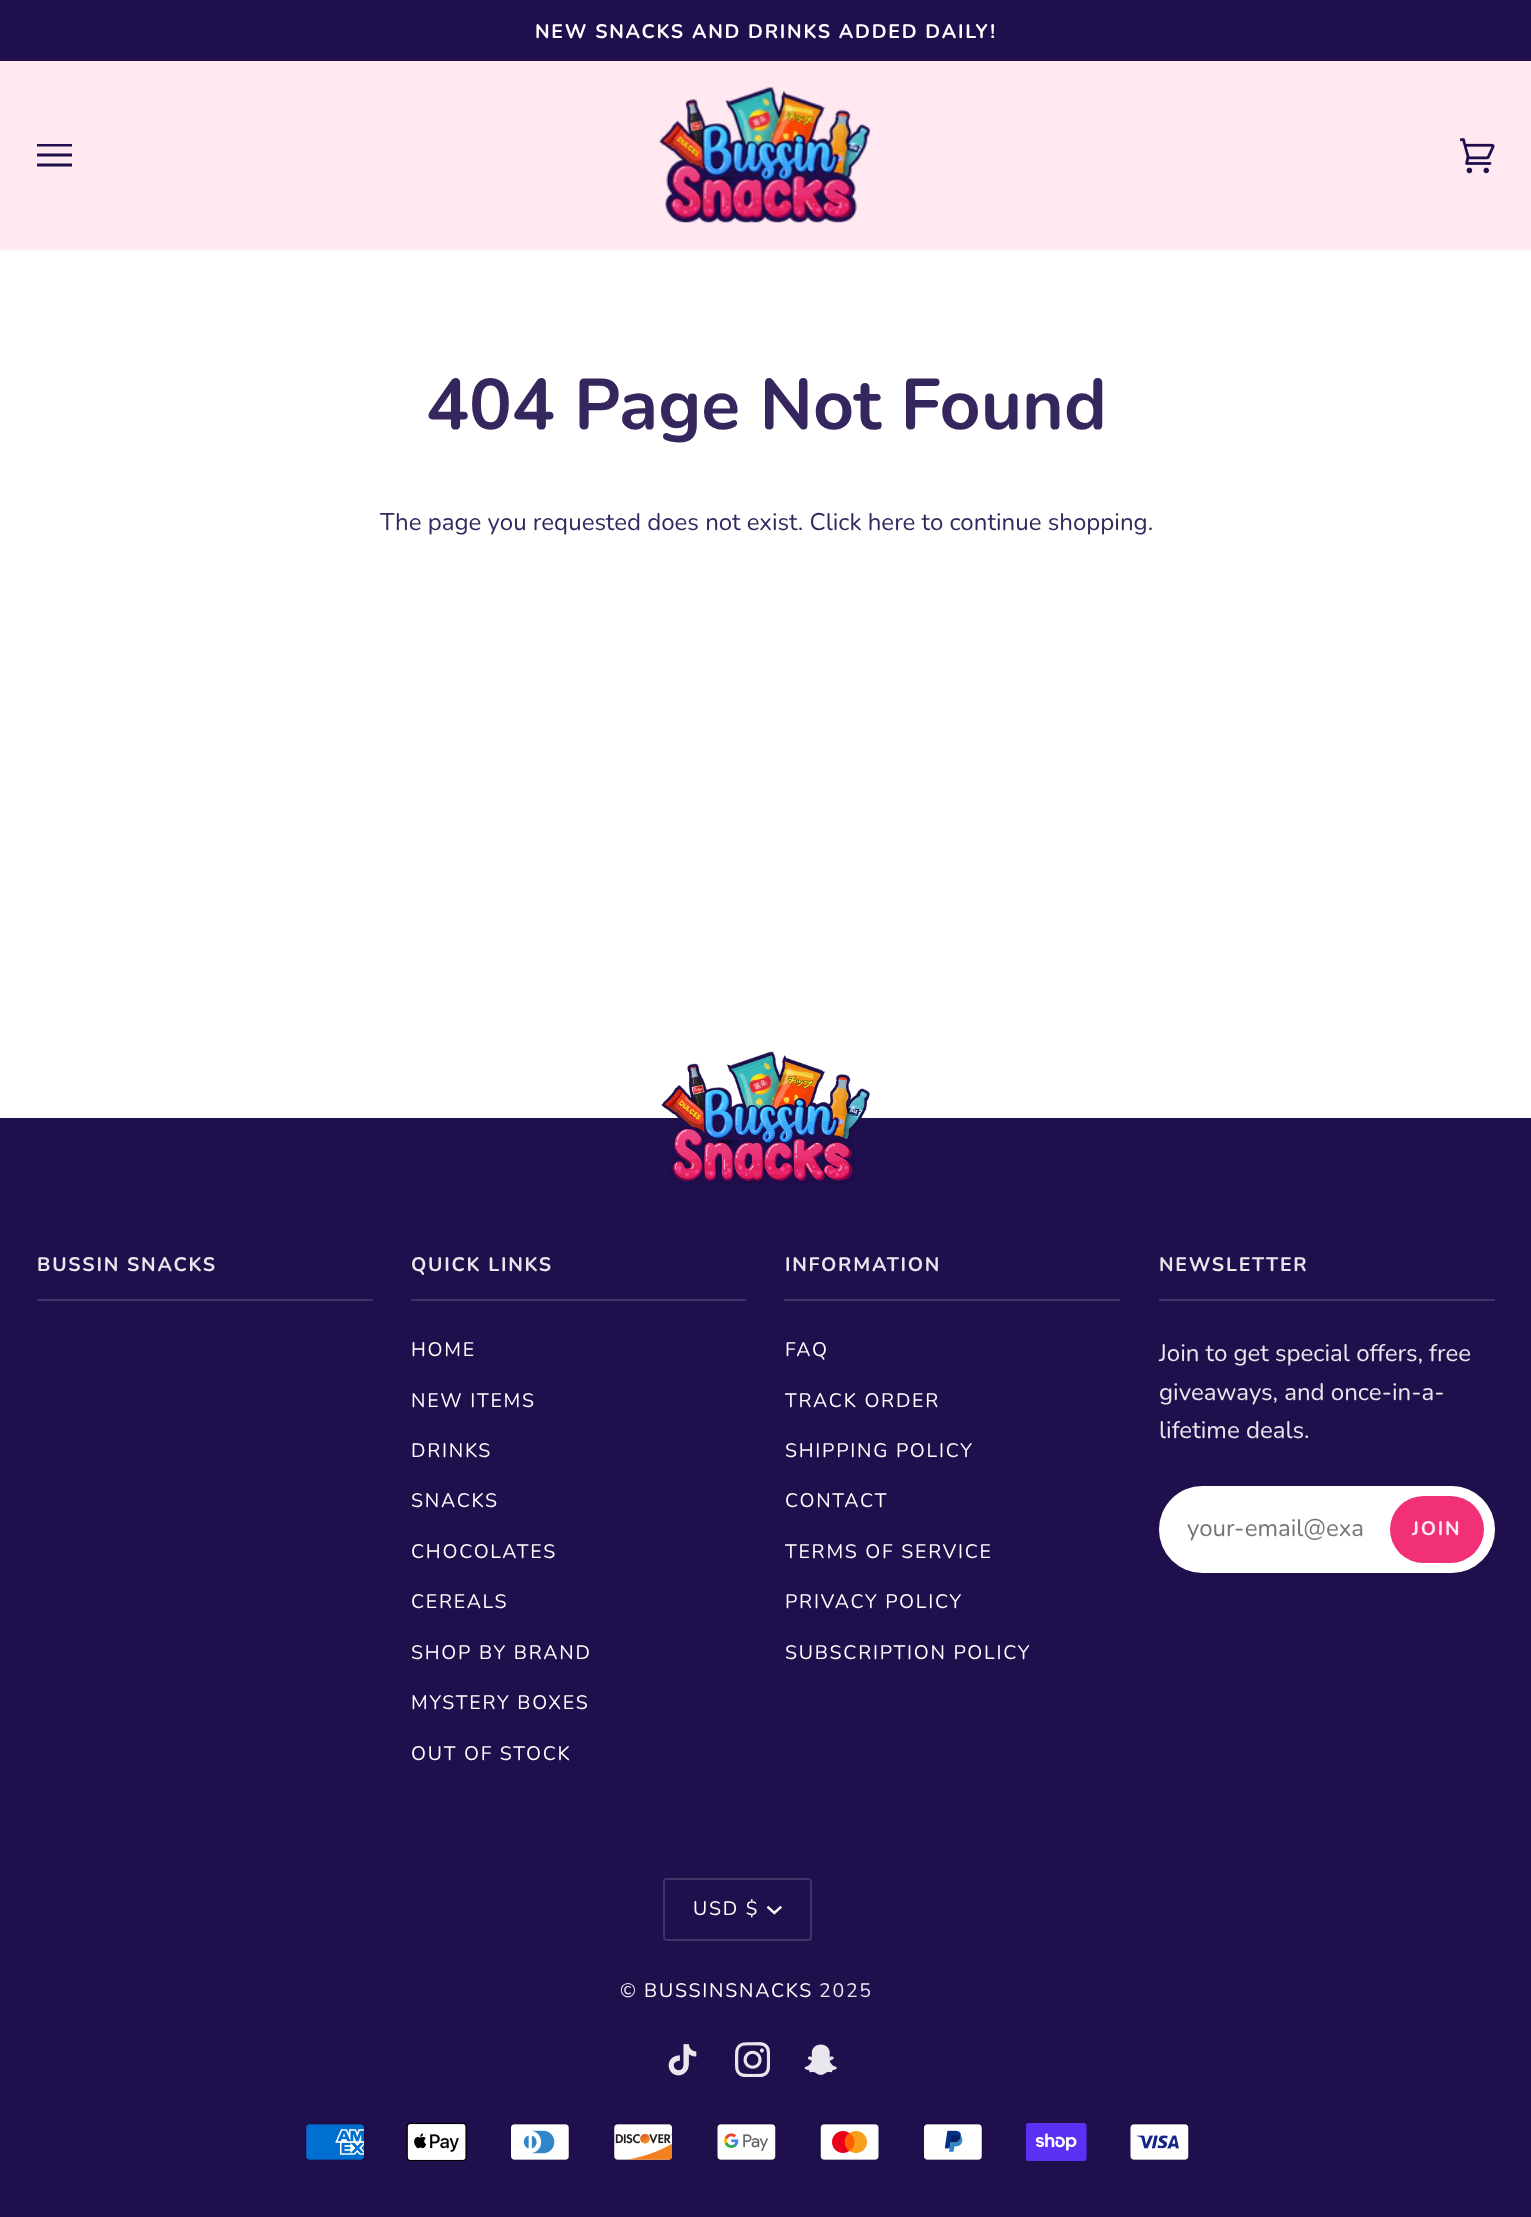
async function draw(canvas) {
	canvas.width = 1531;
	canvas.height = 2217;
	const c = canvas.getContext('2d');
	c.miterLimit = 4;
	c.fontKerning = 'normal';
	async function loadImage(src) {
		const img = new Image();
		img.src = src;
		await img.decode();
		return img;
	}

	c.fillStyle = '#fff';
	c.fillRect(0, 0, 1531, 2217);
	c.fillStyle = '#1f0f4c';
	c.fillRect(0, 0, 1531, 61);
	c.letterSpacing = '1.75px';
	c.font = 'bold 19.5px Nunito';
	c.fillStyle = '#fff';
	c.fillText('NEW SNACKS AND DRINKS ADDED DAILY!', 535, 38);
	c.fillStyle = '#ffe8f0';
	c.fillRect(0, 61, 1531, 188);
	c.fillStyle = '#f7f7f7';
	c.fillRect(0, 249, 1531, 2);
	c.fillStyle = '#1f0f4c';
	c.beginPath();
	c.moveTo(37, 144);
	c.lineTo(72, 144);
	c.lineTo(72, 146.5);
	c.lineTo(37, 146.5);
	c.closePath();
	c.moveTo(37, 153.5);
	c.lineTo(72, 153.5);
	c.lineTo(72, 156.5);
	c.lineTo(37, 156.5);
	c.closePath();
	c.moveTo(37, 163.5);
	c.lineTo(72, 163.5);
	c.lineTo(72, 166.5);
	c.lineTo(37, 166.5);
	c.closePath();
	c.fill();
	c.drawImage(await loadImage('img1.png'), 659, 87, 211, 136);
	c.drawImage(await loadImage('img2.png'), 1460, 138, 35, 36);
	c.letterSpacing = '0px';
	c.font = 'bold 71.5px Nunito';
	c.fillStyle = '#35275e';
	c.fillText('404 Page Not Found', 426, 429);
	c.font = '24.05px Nunito';
	c.fillText('The page you requested does not exist. Click here to continue shopping.', 380, 530);
	c.fillStyle = '#1f0f4c';
	c.fillRect(0, 1118, 1531, 1099);
	c.drawImage(await loadImage('img3.png'), 661, 1051, 209, 134);
	c.letterSpacing = '1.75px';
	c.font = 'bold 19.5px Nunito';
	c.fillStyle = '#e9e7ed';
	c.fillText('BUSSIN SNACKS', 37, 1271);
	c.fillStyle = '#413367';
	c.fillRect(37, 1299, 336, 2);
	c.fillStyle = '#e9e7ed';
	c.fillText('QUICK LINKS', 411, 1271);
	c.fillStyle = '#413367';
	c.fillRect(411, 1299, 335, 2);
	c.font = '19.5px Nunito';
	c.fillStyle = '#fff';
	for (const [text, x, y] of [
		['HOME', 411, 1356],
		['NEW ITEMS', 411, 1407],
		['DRINKS', 411, 1457],
		['SNACKS', 411, 1507],
		['CHOCOLATES', 411, 1558],
		['CEREALS', 411, 1608],
		['SHOP BY BRAND', 411, 1659],
		['MYSTERY BOXES', 411, 1709],
		['OUT OF STOCK', 411, 1760],
	]) {
		c.fillText(text, x, y);
	}
	c.font = 'bold 19.5px Nunito';
	c.fillStyle = '#e9e7ed';
	c.fillText('INFORMATION', 785, 1271);
	c.fillStyle = '#413367';
	c.fillRect(784, 1299, 336, 2);
	c.font = '19.5px Nunito';
	c.fillStyle = '#fff';
	for (const [text, x, y] of [
		['FAQ', 785, 1356],
		['TRACK ORDER', 785, 1407],
		['SHIPPING POLICY', 785, 1457],
		['CONTACT', 785, 1507],
		['TERMS OF SERVICE', 785, 1558],
		['PRIVACY POLICY', 785, 1608],
		['SUBSCRIPTION POLICY', 785, 1659],
	]) {
		c.fillText(text, x, y);
	}
	c.font = 'bold 19.5px Nunito';
	c.fillStyle = '#e9e7ed';
	c.fillText('NEWSLETTER', 1159, 1271);
	c.fillStyle = '#413367';
	c.fillRect(1159, 1299, 336, 2);
	c.letterSpacing = '0px';
	c.font = '24.05px Nunito';
	c.fillStyle = '#e9e7ed';
	for (const [text, x, y] of [
		['Join to get special offers, free', 1159, 1361],
		['giveaways, and once-in-a-', 1159, 1400],
		['lifetime deals.', 1159, 1438],
	]) {
		c.fillText(text, x, y);
	}
	c.fillStyle = '#fff';
	c.beginPath();
	c.roundRect(1159, 1486, 336, 87, 43.5);
	c.fill();
	c.beginPath();
	c.roundRect(1160, 1487, 334, 85, 42.5);
	c.strokeStyle = '#ffffff26';
	c.lineWidth = 2;
	c.stroke();
	c.fillStyle = '#757575';
	c.fillText('your-email@exa', 1187, 1536);
	c.fillStyle = '#f23078';
	c.beginPath();
	c.roundRect(1390, 1496, 94, 67, 33.5);
	c.fill();
	c.letterSpacing = '1.75px';
	c.font = 'bold 19.5px Nunito';
	c.fillStyle = '#feeaf2';
	c.fillText('JOIN', 1412, 1535);
	c.beginPath();
	c.roundRect(664, 1879, 147, 61, 3);
	c.strokeStyle = '#413367';
	c.stroke();
	c.font = '19.5px Nunito';
	c.fillStyle = '#fff';
	c.fillText('USD $', 693, 1915);
	c.drawImage(await loadImage('img4.png'), 767, 1905, 15, 10);
	c.fillStyle = '#e9e7ed';
	c.fillText('©', 620, 1997);
	c.fillStyle = '#fff';
	c.fillText('BUSSINSNACKS', 644, 1997);
	c.fillStyle = '#e9e7ed';
	c.fillText('2025', 819, 1997);
	c.drawImage(await loadImage('img5.png'), 668, 2044, 29, 32);
	c.drawImage(await loadImage('img6.png'), 735, 2042, 35, 35);
	c.drawImage(await loadImage('img7.png'), 804, 2044, 33, 31);
	c.drawImage(await loadImage('img8.png'), 305, 2123, 60, 38);
	c.drawImage(await loadImage('img9.png'), 406, 2123, 61, 38);
	c.drawImage(await loadImage('img10.png'), 510, 2123, 60, 38);
	c.drawImage(await loadImage('img11.png'), 613, 2123, 60, 38);
	c.drawImage(await loadImage('img12.png'), 716, 2123, 61, 38);
	c.drawImage(await loadImage('img13.png'), 819, 2123, 61, 38);
	c.drawImage(await loadImage('img14.png'), 923, 2123, 60, 38);
	c.drawImage(await loadImage('img15.png'), 1026, 2123, 61, 38);
	c.drawImage(await loadImage('img16.png'), 1129, 2123, 61, 38);
}

draw(document.querySelector('canvas'));
